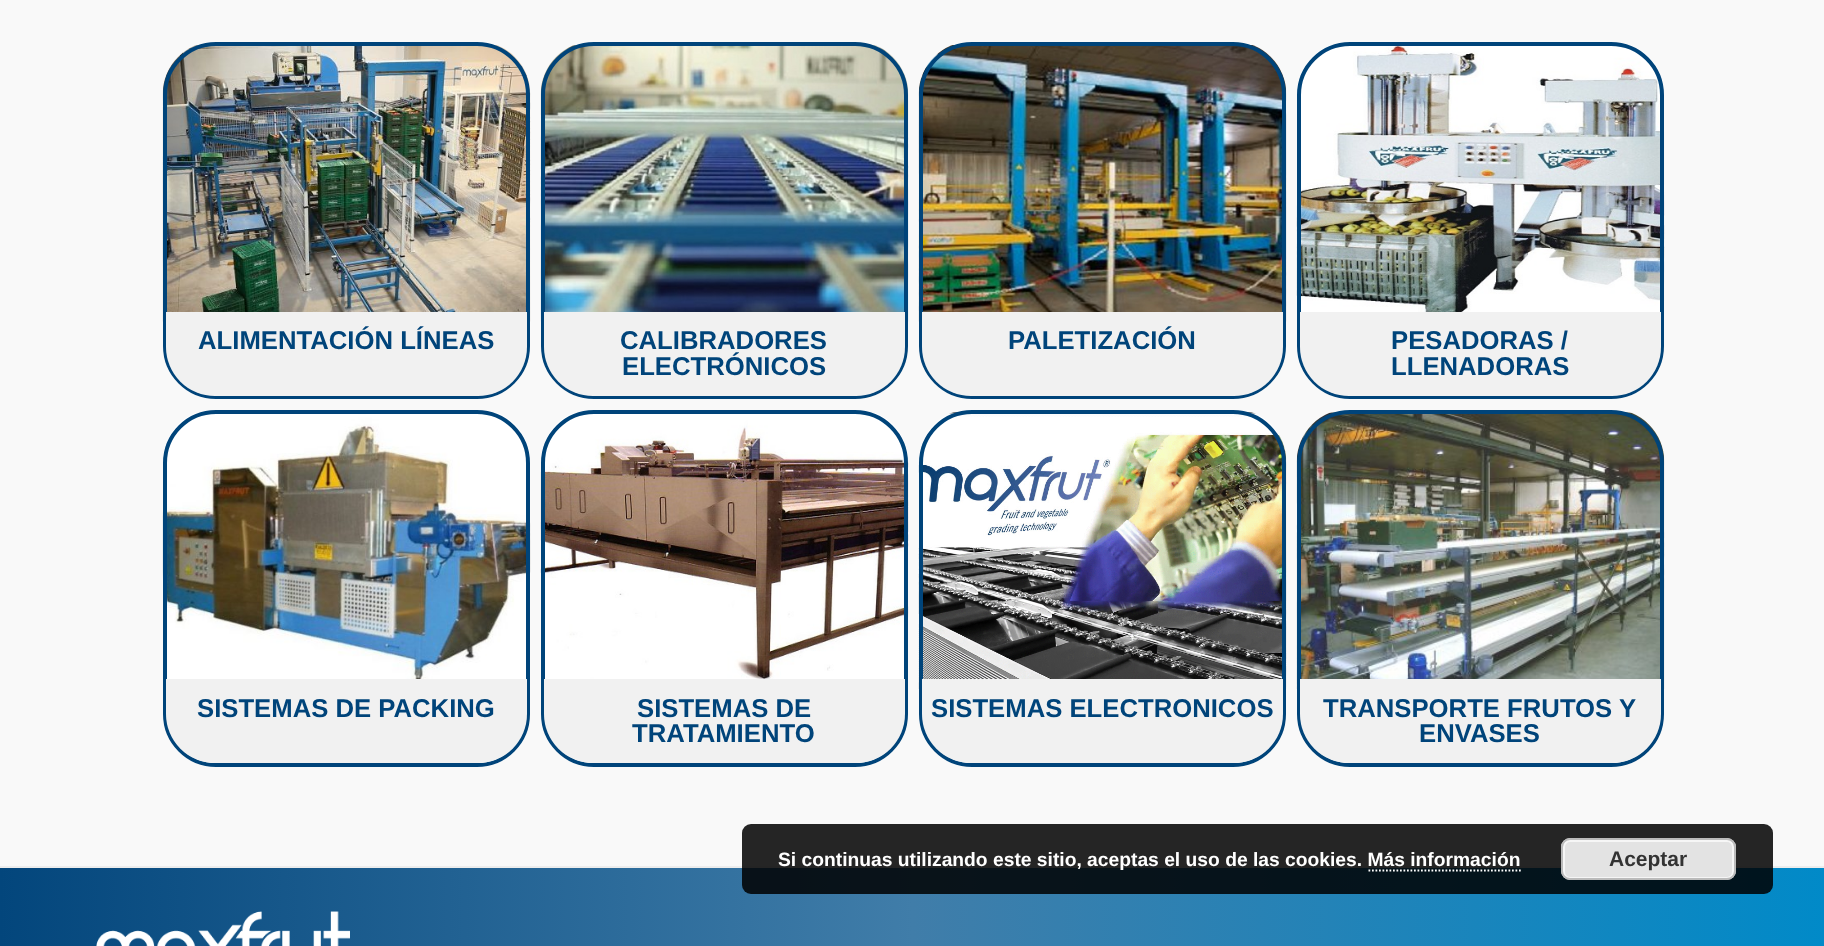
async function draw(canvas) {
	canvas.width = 1824;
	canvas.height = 946;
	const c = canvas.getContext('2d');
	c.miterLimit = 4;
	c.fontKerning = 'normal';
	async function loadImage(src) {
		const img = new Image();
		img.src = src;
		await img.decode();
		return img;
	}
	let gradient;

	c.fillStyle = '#f9f9f9';
	c.fillRect(0, 0, 1824, 946);
	c.drawImage(await loadImage('img1.png'), 162, 45, 369, 277);
	c.beginPath();
	c.roundRect(165, 44, 363, 353, 51);
	c.strokeStyle = '#00447a';
	c.lineWidth = 4;
	c.stroke();
	c.fillStyle = '#f1f1f1';
	c.beginPath();
	c.roundRect(166, 312, 361, 84, [0, 0, 49, 49]);
	c.fill();
	c.font = 'bold 25.7px Liberation Sans';
	c.fillStyle = '#00447a';
	c.fillText('ALIMENTACIÓN LÍNEAS', 198, 349);
	c.drawImage(await loadImage('img2.png'), 540, 45, 369, 277);
	c.beginPath();
	c.roundRect(543, 44, 363, 353, 51);
	c.stroke();
	c.fillStyle = '#f1f1f1';
	c.beginPath();
	c.roundRect(544, 312, 361, 84, [0, 0, 49, 49]);
	c.fill();
	c.fillStyle = '#00447a';
	c.fillText('CALIBRADORES', 620, 349);
	c.fillText('ELECTRÓNICOS', 622, 375);
	c.drawImage(await loadImage('img3.png'), 918, 45, 369, 277);
	c.beginPath();
	c.roundRect(921, 44, 363, 353, 51);
	c.stroke();
	c.fillStyle = '#f1f1f1';
	c.beginPath();
	c.roundRect(922, 312, 361, 84, [0, 0, 49, 49]);
	c.fill();
	c.fillStyle = '#00447a';
	c.fillText('PALETIZACIÓN', 1008, 349);
	c.drawImage(await loadImage('img4.png'), 1296, 45, 369, 276);
	c.beginPath();
	c.roundRect(1299, 44, 363, 353, 51);
	c.stroke();
	c.fillStyle = '#f1f1f1';
	c.beginPath();
	c.roundRect(1300, 312, 361, 84, [0, 0, 49, 49]);
	c.fill();
	c.fillStyle = '#00447a';
	c.fillText('PESADORAS /', 1391, 349);
	c.fillText('LLENADORAS', 1391, 375);
	c.drawImage(await loadImage('img5.png'), 162, 413, 369, 276);
	c.beginPath();
	c.roundRect(165, 412, 363, 353, 51);
	c.stroke();
	c.fillStyle = '#f1f1f1';
	c.beginPath();
	c.roundRect(166, 679, 361, 84, [0, 0, 49, 49]);
	c.fill();
	c.fillStyle = '#00447a';
	c.fillText('SISTEMAS DE PACKING', 197, 717);
	c.drawImage(await loadImage('img6.png'), 540, 413, 369, 276);
	c.beginPath();
	c.roundRect(543, 412, 363, 353, 51);
	c.stroke();
	c.fillStyle = '#f1f1f1';
	c.beginPath();
	c.roundRect(544, 679, 361, 84, [0, 0, 49, 49]);
	c.fill();
	c.fillStyle = '#00447a';
	c.fillText('SISTEMAS DE', 637, 717);
	c.fillText('TRATAMIENTO', 632, 742);
	c.drawImage(await loadImage('img7.png'), 918, 412, 369, 277);
	c.beginPath();
	c.roundRect(921, 412, 363, 353, 51);
	c.stroke();
	c.fillStyle = '#f1f1f1';
	c.beginPath();
	c.roundRect(922, 679, 361, 84, [0, 0, 49, 49]);
	c.fill();
	c.fillStyle = '#00447a';
	c.fillText('SISTEMAS ELECTRONICOS', 931, 717);
	c.drawImage(await loadImage('img8.png'), 1296, 412, 369, 277);
	c.beginPath();
	c.roundRect(1299, 412, 363, 353, 51);
	c.stroke();
	c.fillStyle = '#f1f1f1';
	c.beginPath();
	c.roundRect(1300, 679, 361, 84, [0, 0, 49, 49]);
	c.fill();
	c.fillStyle = '#00447a';
	c.fillText('TRANSPORTE FRUTOS Y', 1323, 717);
	c.fillText('ENVASES', 1419, 742);
	gradient = c.createLinearGradient(0, 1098, 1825, 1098);
	gradient.addColorStop(0, '#03467c');
	gradient.addColorStop(0.5, '#407da9');
	gradient.addColorStop(1, '#018ac8');
	c.fillStyle = gradient;
	c.fillRect(0, 868, 1824, 78);
	c.fillStyle = '#ededed';
	c.fillRect(0, 866, 1824, 2);
	c.fillStyle = '#000000d9';
	c.beginPath();
	c.roundRect(742, 824, 1031, 70, 9);
	c.fill();
	c.font = 'bold 19.25px Liberation Sans';
	c.fillStyle = '#fff';
	c.fillText('Si continuas utilizando este sitio, aceptas el uso de las cookies. Más información', 778, 866);
	c.fillStyle = '#e3e3e3';
	c.beginPath();
	c.roundRect(1561, 838, 175, 42, 9);
	c.fill();
	c.beginPath();
	c.roundRect(1564, 841, 169, 37, 6);
	c.strokeStyle = '#f6f6f6';
	c.lineWidth = 2;
	c.stroke();
	c.beginPath();
	c.roundRect(1562, 839, 173, 40, 8);
	c.strokeStyle = '#bbb';
	c.stroke();
	c.font = 'bold 21px Liberation Sans';
	c.fillStyle = '#333';
	c.fillText('Aceptar', 1609, 866);
	c.beginPath();
	c.moveTo(1368.5, 870.5);
	c.lineTo(1521, 870.5);
	c.strokeStyle = '#fff';
	c.lineWidth = 1.8;
	c.setLineDash([1.75, 1.75]);
	c.stroke();
	c.drawImage(await loadImage('img9.png'), 96, 911, 254, 35);
}

draw(document.querySelector('canvas'));
